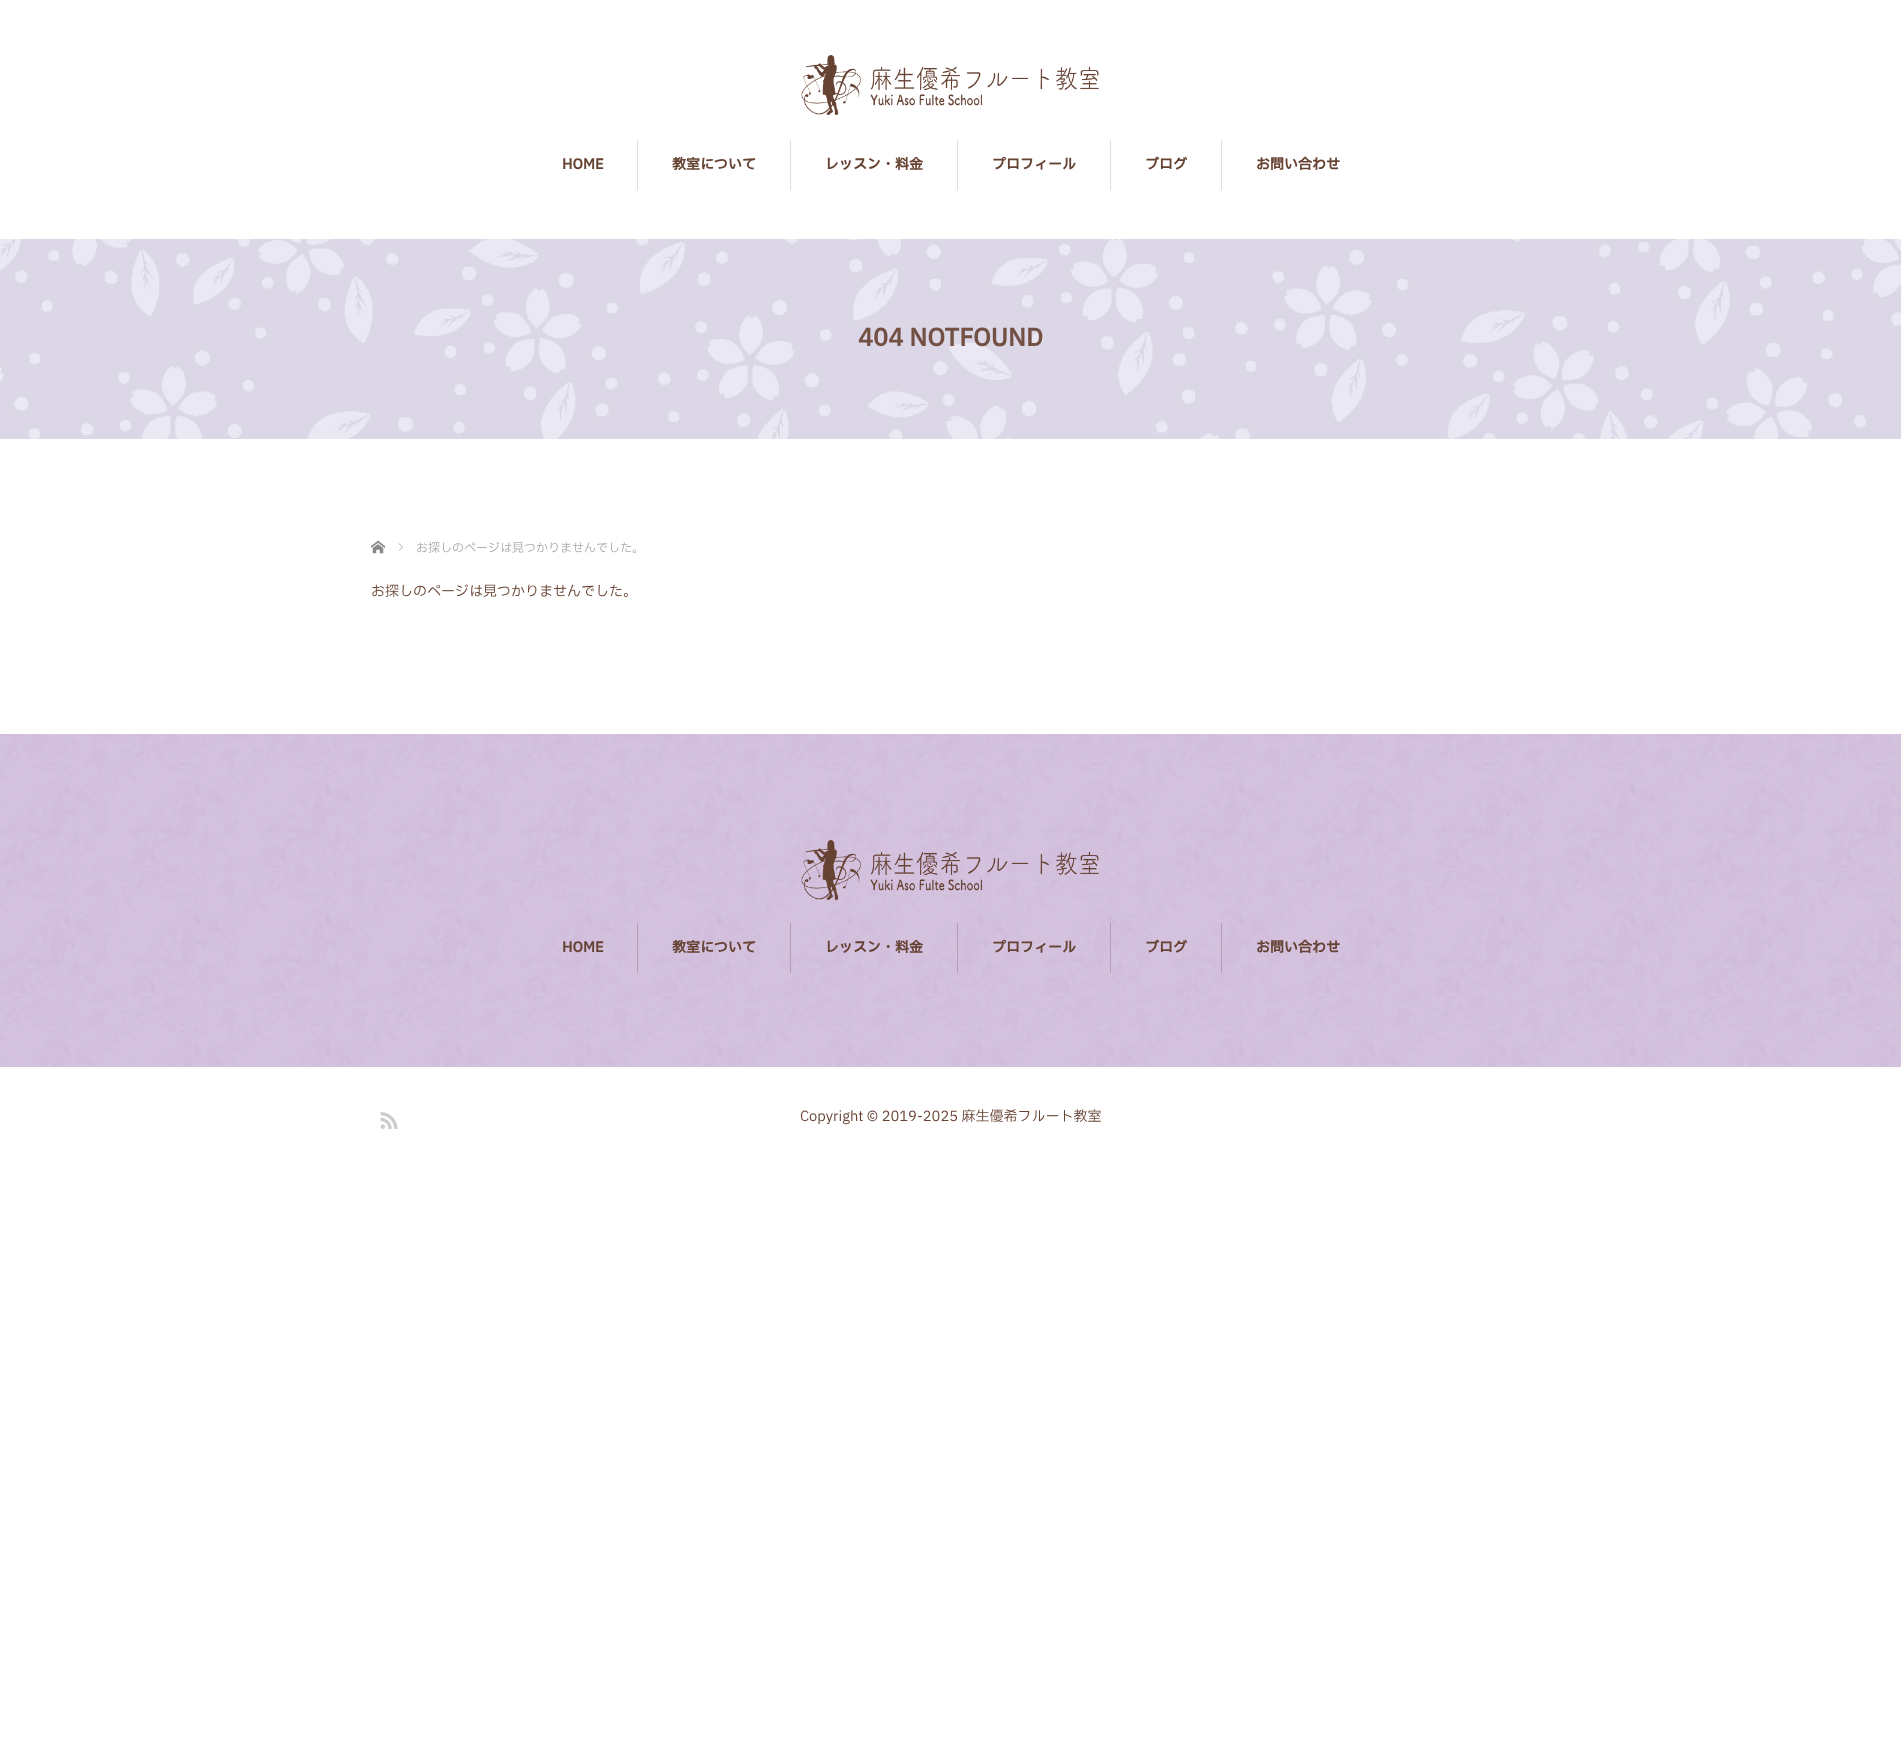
async function draw(canvas) {
	canvas.width = 1901;
	canvas.height = 1745;
	const c = canvas.getContext('2d');
	c.miterLimit = 4;
	c.fontKerning = 'normal';
	async function loadImage(src) {
		const img = new Image();
		img.src = src;
		await img.decode();
		return img;
	}

	c.fillStyle = '#fff';
	c.fillRect(0, 0, 1901, 1745);
	c.drawImage(await loadImage('img1.png'), 801, 55, 298, 60);
	c.font = 'bold 14px IBM Plex Sans JP';
	c.fillStyle = '#664232';
	c.fillText('HOME', 562, 169);
	c.fillStyle = '#ddd';
	c.fillRect(637, 140, 1, 50);
	c.fillStyle = '#664232';
	c.fillText('教室について', 672, 169);
	c.fillStyle = '#ddd';
	c.fillRect(790, 140, 1, 50);
	c.fillStyle = '#664232';
	c.fillText('レッスン・料金', 825, 169);
	c.fillStyle = '#ddd';
	c.fillRect(957, 140, 1, 50);
	c.fillStyle = '#664232';
	c.fillText('プロフィール', 992, 169);
	c.fillStyle = '#ddd';
	c.fillRect(1110, 140, 1, 50);
	c.fillStyle = '#664232';
	c.fillText('ブログ', 1145, 169);
	c.fillStyle = '#ddd';
	c.fillRect(1221, 140, 1, 50);
	c.fillStyle = '#664232';
	c.fillText('お問い合わせ', 1256, 169);
	c.drawImage(await loadImage('img2.png'), 0, 239, 1901, 200);
	c.font = 'bold 24px IBM Plex Sans JP';
	c.fillStyle = '#725144';
	c.fillText('404 NOTFOUND', 858, 346);
	c.drawImage(await loadImage('img3.png'), 371, 540, 14, 14);
	c.drawImage(await loadImage('img4.png'), 398, 543, 5, 8);
	c.font = '12px IBM Plex Sans JP';
	c.fillStyle = '#aaa';
	c.fillText('お探しのページは見つかりませんでした。', 416, 552);
	c.font = '14px IBM Plex Sans JP';
	c.fillStyle = '#664232';
	c.fillText('お探しのページは見つかりませんでした。', 371, 596);
	c.drawImage(await loadImage('img5.png'), 0, 734, 1901, 333);
	c.drawImage(await loadImage('img6.png'), 801, 840, 298, 60);
	c.font = 'bold 14px IBM Plex Sans JP';
	c.fillText('HOME', 562, 952);
	c.fillStyle = '#b39db8';
	c.fillRect(637, 923, 1, 50);
	c.fillStyle = '#664232';
	c.fillText('教室について', 672, 952);
	c.fillStyle = '#b39db8';
	c.fillRect(790, 923, 1, 50);
	c.fillStyle = '#664232';
	c.fillText('レッスン・料金', 825, 952);
	c.fillStyle = '#b39db8';
	c.fillRect(957, 923, 1, 50);
	c.fillStyle = '#664232';
	c.fillText('プロフィール', 992, 952);
	c.fillStyle = '#b39db8';
	c.fillRect(1110, 923, 1, 50);
	c.fillStyle = '#664232';
	c.fillText('ブログ', 1145, 952);
	c.fillStyle = '#b39db8';
	c.fillRect(1221, 923, 1, 50);
	c.fillStyle = '#664232';
	c.fillText('お問い合わせ', 1256, 952);
	c.drawImage(await loadImage('img7.png'), 380, 1112, 18, 17);
	c.font = '14px IBM Plex Sans JP';
	c.fillText('Copyright © 2019-2025 麻生優希フルート教室', 800, 1121);
}

draw(document.querySelector('canvas'));
